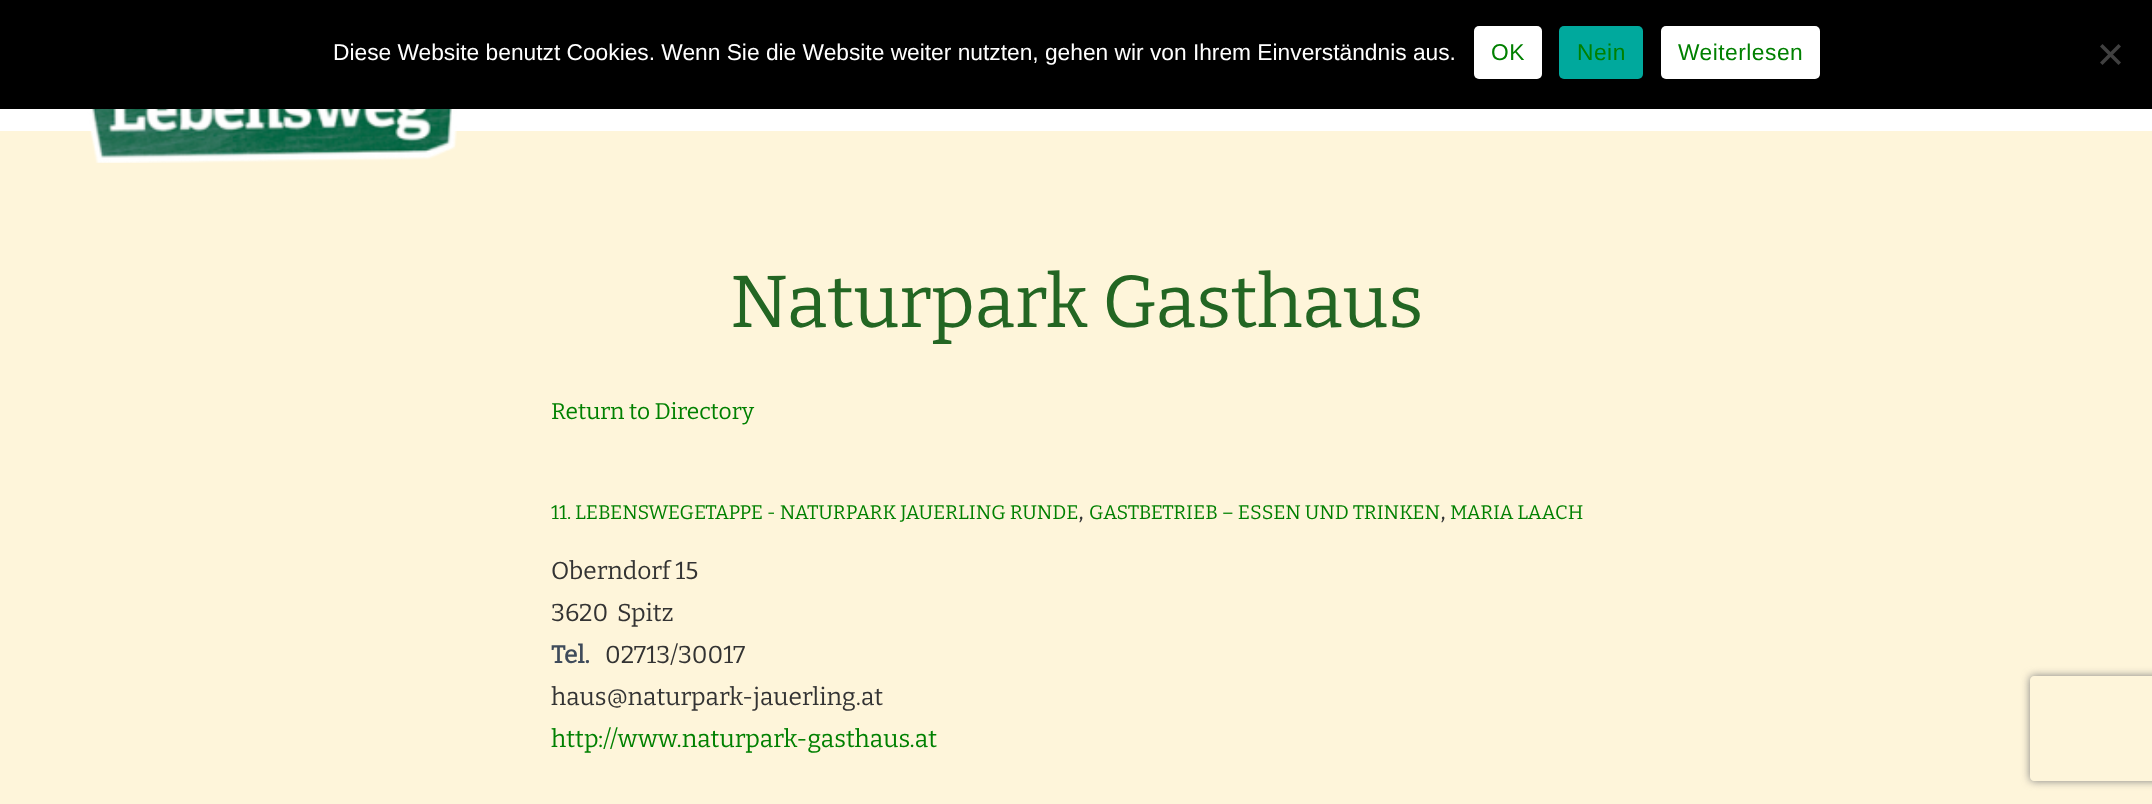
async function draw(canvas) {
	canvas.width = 2152;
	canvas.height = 804;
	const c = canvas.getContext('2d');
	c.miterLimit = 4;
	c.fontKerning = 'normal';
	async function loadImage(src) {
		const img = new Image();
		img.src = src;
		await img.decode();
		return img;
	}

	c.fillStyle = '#fef5da';
	c.fillRect(0, 0, 2152, 804);
	c.fillStyle = '#000';
	c.fillRect(0, 0, 2152, 109);
	c.font = '22.75px Liberation Sans';
	c.fillStyle = '#fff';
	c.fillText('Diese Website benutzt Cookies. Wenn Sie die Website weiter nutzten, gehen wir von Ihrem Einverständnis aus.', 333, 60);
	c.beginPath();
	c.roundRect(1474, 26, 68, 53, 5);
	c.fill();
	c.letterSpacing = '0.5px';
	c.fillStyle = '#008000';
	c.fillText('OK', 1491, 60);
	c.fillStyle = '#00a99d';
	c.beginPath();
	c.roundRect(1559, 26, 84, 53, 5);
	c.fill();
	c.fillStyle = '#008000';
	c.fillText('Nein', 1577, 60);
	c.fillStyle = '#fff';
	c.beginPath();
	c.roundRect(1661, 26, 159, 53, 5);
	c.fill();
	c.fillStyle = '#008000';
	c.fillText('Weiterlesen', 1678, 60);
	c.fillStyle = '#404040';
	c.beginPath();
	c.moveTo(2118.5, 44);
	c.lineTo(2121, 46.5);
	c.lineTo(2102.5, 65);
	c.lineTo(2100, 62.5);
	c.closePath();
	c.fill();
	c.beginPath();
	c.moveTo(2100, 46.5);
	c.lineTo(2102.5, 44);
	c.lineTo(2121, 62.5);
	c.lineTo(2118.5, 65);
	c.closePath();
	c.fill();
	c.fillStyle = '#fff';
	c.fillRect(0, 109, 2152, 22);
	c.drawImage(await loadImage('img1.png'), 85, 109, 372, 54);
	c.letterSpacing = '0px';
	c.font = '100 73.5px Bitter';
	c.fillStyle = '#236623';
	c.fillText('Naturpark Gasthaus', 730, 327);
	c.font = '100 22.75px Bitter';
	c.fillStyle = '#008000';
	c.fillText('Return to Directory', 551, 419);
	c.font = '100 19.6px Bitter';
	c.fillText('11. LEBENSWEGETAPPE - NATURPARK JAUERLING RUNDE', 551, 519);
	c.font = '100 24.5px Bitter';
	c.fillStyle = '#333';
	c.fillText(',', 1078, 519);
	c.font = '100 19.6px Bitter';
	c.fillStyle = '#008000';
	c.fillText('GASTBETRIEB – ESSEN UND TRINKEN', 1089, 519);
	c.font = '100 24.5px Bitter';
	c.fillStyle = '#333';
	c.fillText(',', 1440, 519);
	c.font = '100 19.6px Bitter';
	c.fillStyle = '#008000';
	c.fillText('MARIA LAACH', 1450, 519);
	c.font = '100 24.5px Bitter';
	c.fillStyle = '#333';
	for (const [text, x, y] of [
		['Oberndorf 15', 551, 579],
		['3620', 551, 621],
		['Spitz', 617, 621],
	]) {
		c.fillText(text, x, y);
	}
	c.font = 'bold 24.5px Bitter';
	c.fillStyle = '#3f4b5b';
	c.fillText('Tel.', 551, 663);
	c.font = '100 24.5px Bitter';
	c.fillStyle = '#333';
	c.fillText('02713/30017', 605, 663);
	c.fillText('haus@naturpark-jauerling.at', 551, 705);
	c.fillStyle = '#008000';
	c.fillText('http://www.naturpark-gasthaus.at', 551, 747);
	c.save();
	c.beginPath();
	c.moveTo(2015, 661);
	c.lineTo(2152, 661);
	c.lineTo(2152, 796);
	c.lineTo(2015, 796);
	c.closePath();
	c.moveTo(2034, 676);
	c.lineTo(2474, 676);
	c.bezierCurveTo(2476, 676, 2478, 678, 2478, 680);
	c.lineTo(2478, 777);
	c.bezierCurveTo(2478, 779, 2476, 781, 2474, 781);
	c.lineTo(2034, 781);
	c.bezierCurveTo(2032, 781, 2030, 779, 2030, 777);
	c.lineTo(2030, 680);
	c.bezierCurveTo(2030, 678, 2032, 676, 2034, 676);
	c.closePath();
	c.clip('evenodd');
	c.fillStyle = '#808080';
	c.filter = 'blur(4.5px)';
	c.beginPath();
	c.roundRect(2030, 676, 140, 105, 4);
	c.fill();
	c.filter = 'none';
	c.restore();
}

draw(document.querySelector('canvas'));
